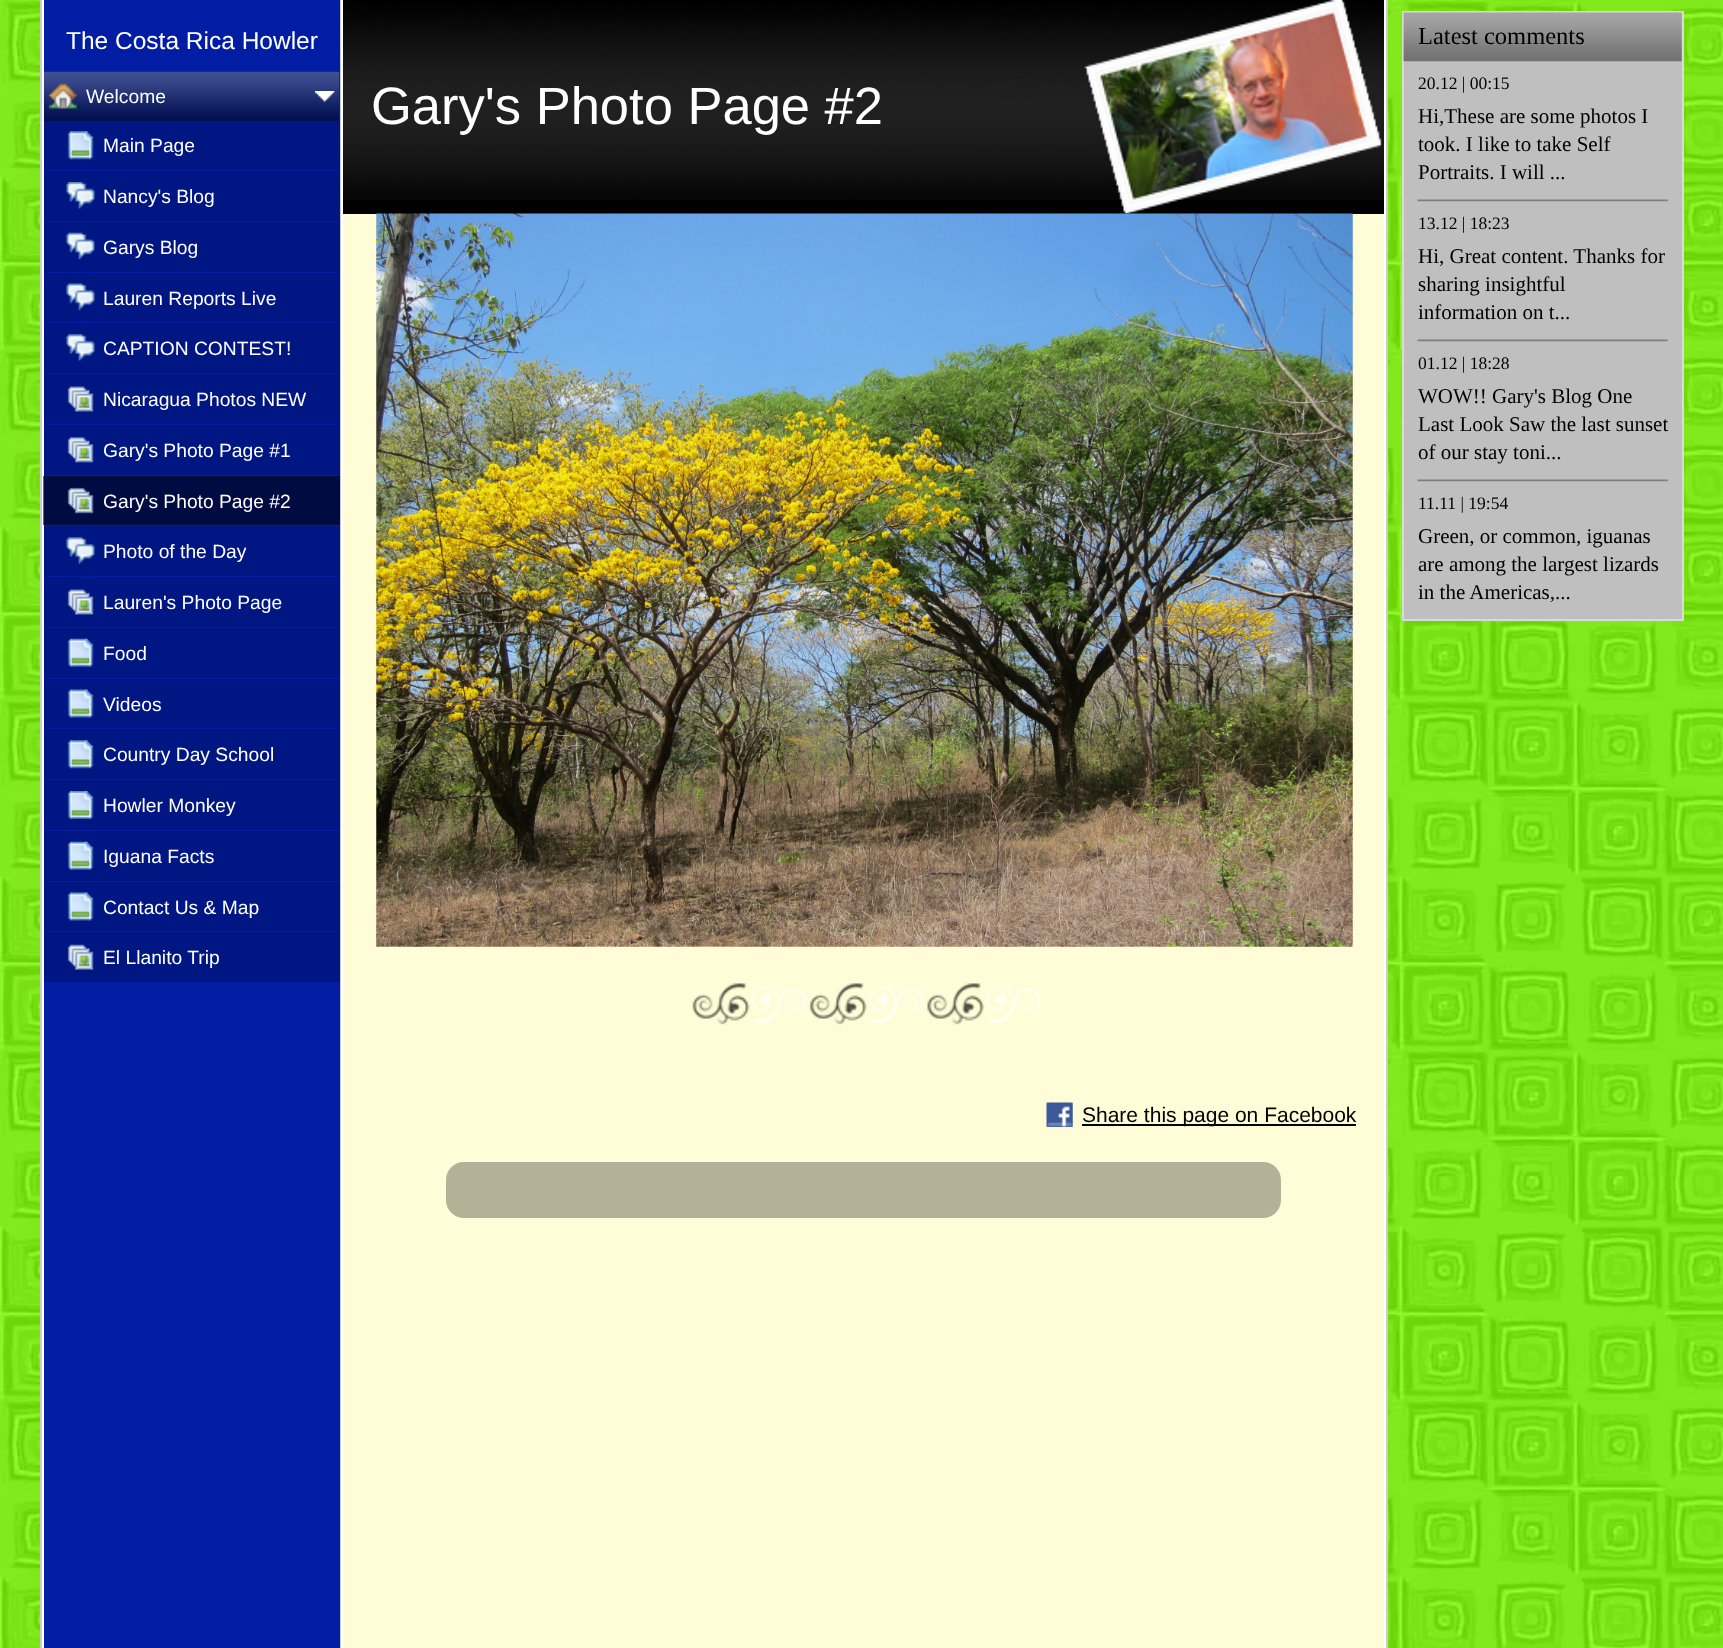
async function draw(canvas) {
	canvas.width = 1723;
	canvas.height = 1648;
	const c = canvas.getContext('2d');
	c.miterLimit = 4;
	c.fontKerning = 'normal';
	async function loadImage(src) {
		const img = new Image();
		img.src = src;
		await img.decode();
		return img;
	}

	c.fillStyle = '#7fff00';
	c.fillRect(0, 0, 1723, 1648);
	c.drawImage(await loadImage('img1.png'), 0, 0, 1723, 1648);
	for (const [x, y, w, h, color] of [
		[42, 0, 1344, 1648, '#fff'],
		[40, 0, 2, 1648, '#ccc'],
		[44, 0, 296, 1648, '#001da4'],
	]) {
		c.fillStyle = color;
		c.fillRect(x, y, w, h);
	}
	c.font = '24.5px Liberation Sans';
	c.fillStyle = '#fff';
	c.fillText('The Costa Rica Howler', 66, 49);
	c.drawImage(await loadImage('img2.png'), 43, 71, 297, 50);
	c.drawImage(await loadImage('img3.png'), 49, 83, 28, 26);
	c.drawImage(await loadImage('img4.png'), 315, 91, 20, 11);
	c.font = '19.25px Liberation Sans';
	c.fillText('Welcome', 86, 103);
	c.fillStyle = '#00000033';
	c.fillRect(44, 120, 296, 50);
	c.drawImage(await loadImage('img5.png'), 67, 131, 27, 29);
	c.fillStyle = '#fff';
	c.fillText('Main Page', 103, 152);
	c.fillStyle = '#001783';
	c.fillRect(44, 171, 296, 50);
	c.drawImage(await loadImage('img6.png'), 66, 182, 29, 27);
	c.fillStyle = '#fff';
	c.fillText('Nancy\'s Blog', 103, 203);
	c.fillStyle = '#001783';
	c.fillRect(44, 222, 296, 50);
	c.drawImage(await loadImage('img7.png'), 66, 232, 29, 28);
	c.fillStyle = '#fff';
	c.fillText('Garys Blog', 103, 254);
	c.fillStyle = '#001783';
	c.fillRect(44, 273, 296, 49);
	c.drawImage(await loadImage('img8.png'), 66, 283, 29, 28);
	c.fillStyle = '#fff';
	c.fillText('Lauren Reports Live', 103, 305);
	c.fillStyle = '#001783';
	c.fillRect(44, 323, 296, 50);
	c.drawImage(await loadImage('img9.png'), 66, 334, 29, 27);
	c.fillStyle = '#fff';
	c.fillText('CAPTION CONTEST!', 103, 355);
	c.fillStyle = '#001783';
	c.fillRect(44, 374, 296, 50);
	c.drawImage(await loadImage('img10.png'), 67, 386, 27, 26);
	c.fillStyle = '#fff';
	c.fillText('Nicaragua Photos NEW', 103, 406);
	c.fillStyle = '#001783';
	c.fillRect(44, 425, 296, 50);
	c.drawImage(await loadImage('img11.png'), 67, 437, 27, 26);
	c.fillStyle = '#fff';
	c.fillText('Gary\'s Photo Page #1', 103, 457);
	c.fillStyle = '#00000099';
	c.fillRect(43, 476, 297, 49);
	c.drawImage(await loadImage('img12.png'), 67, 487, 27, 27);
	c.fillStyle = '#fff';
	c.fillText('Gary\'s Photo Page #2', 103, 508);
	c.fillStyle = '#001783';
	c.fillRect(44, 526, 296, 50);
	c.drawImage(await loadImage('img9.png'), 66, 537, 29, 27);
	c.fillStyle = '#fff';
	c.fillText('Photo of the Day', 103, 558);
	c.fillStyle = '#001783';
	c.fillRect(44, 577, 296, 50);
	c.drawImage(await loadImage('img10.png'), 67, 589, 27, 26);
	c.fillStyle = '#fff';
	c.fillText('Lauren\'s Photo Page', 103, 609);
	c.fillStyle = '#001783';
	c.fillRect(44, 628, 296, 50);
	c.drawImage(await loadImage('img13.png'), 67, 638, 27, 29);
	c.fillStyle = '#fff';
	c.fillText('Food', 103, 660);
	c.fillStyle = '#001783';
	c.fillRect(44, 679, 296, 49);
	c.drawImage(await loadImage('img14.png'), 67, 689, 27, 29);
	c.fillStyle = '#fff';
	c.fillText('Videos', 103, 711);
	c.fillStyle = '#001783';
	c.fillRect(44, 729, 296, 50);
	c.drawImage(await loadImage('img15.png'), 67, 740, 27, 29);
	c.fillStyle = '#fff';
	c.fillText('Country Day School', 103, 761);
	c.fillStyle = '#001783';
	c.fillRect(44, 780, 296, 50);
	c.drawImage(await loadImage('img16.png'), 67, 791, 27, 28);
	c.fillStyle = '#fff';
	c.fillText('Howler Monkey', 103, 812);
	c.fillStyle = '#001783';
	c.fillRect(44, 831, 296, 50);
	c.drawImage(await loadImage('img13.png'), 67, 841, 27, 29);
	c.fillStyle = '#fff';
	c.fillText('Iguana Facts', 103, 863);
	c.fillStyle = '#001783';
	c.fillRect(44, 882, 296, 49);
	c.drawImage(await loadImage('img14.png'), 67, 892, 27, 29);
	c.fillStyle = '#fff';
	c.fillText('Contact Us & Map', 103, 914);
	c.fillStyle = '#001783';
	c.fillRect(44, 932, 296, 50);
	c.drawImage(await loadImage('img17.png'), 67, 944, 27, 26);
	c.fillStyle = '#fff';
	c.fillText('El Llanito Trip', 103, 964);
	for (const [x, y, w, h, color] of [
		[340, 0, 1, 1648, '#ccc'],
		[343, 214, 1041, 1434, '#fffdd7'],
		[343, 0, 1041, 214, '#000'],
	]) {
		c.fillStyle = color;
		c.fillRect(x, y, w, h);
	}
	c.drawImage(await loadImage('img18.png'), 343, 0, 1042, 200);
	c.font = '52.5px Liberation Sans';
	c.fillStyle = '#fff';
	c.fillText('Gary\'s Photo Page #2', 371, 124);
	c.drawImage(await loadImage('img19.png'), 1084, 0, 298, 214);
	c.drawImage(await loadImage('img20.png'), 376, 213, 977, 734);
	c.drawImage(await loadImage('img21.png'), 692, 983, 350, 42);
	c.drawImage(await loadImage('img22.png'), 1046, 1102, 27, 25);
	c.fillStyle = '#000';
	c.fillRect(1082, 1124, 274, 2);
	c.font = '21px Liberation Sans';
	c.fillText('Share this page on Facebook', 1082, 1122);
	c.fillStyle = '#b3b197';
	c.beginPath();
	c.roundRect(446, 1162, 835, 56, 18);
	c.fill();
	c.fillStyle = '#ccc';
	c.fillRect(1386, 0, 2, 1648);
	c.fillStyle = '#c0bfbf';
	c.beginPath();
	c.rect(1403, 12, 280, 608);
	c.fill();
	c.strokeStyle = '#dadada';
	c.lineWidth = 2;
	c.stroke();
	c.drawImage(await loadImage('img23.png'), 1403, 12, 279, 50);
	c.font = '24.5px Liberation Serif';
	c.fillStyle = '#000';
	c.fillText('Latest comments', 1418, 44);
	c.font = '17.5px Liberation Serif';
	c.fillText('20.12 | 00:15', 1418, 89);
	c.font = '21px Liberation Serif';
	for (const [text, x, y] of [
		['Hi,These are some photos I', 1418, 123],
		['took. I like to take Self', 1418, 151],
		['Portraits. I will ...', 1418, 179],
	]) {
		c.fillText(text, x, y);
	}
	c.drawImage(await loadImage('img24.png'), 1417, 199, 251, 3);
	c.font = '17.5px Liberation Serif';
	c.fillText('13.12 | 18:23', 1418, 229);
	c.font = '21px Liberation Serif';
	for (const [text, x, y] of [
		['Hi, Great content. Thanks for', 1418, 263],
		['sharing insightful', 1418, 291],
		['information on t...', 1418, 319],
	]) {
		c.fillText(text, x, y);
	}
	c.drawImage(await loadImage('img24.png'), 1417, 339, 251, 3);
	c.font = '17.5px Liberation Serif';
	c.fillText('01.12 | 18:28', 1418, 369);
	c.font = '21px Liberation Serif';
	for (const [text, x, y] of [
		['WOW!! Gary\'s Blog One', 1418, 403],
		['Last Look Saw the last sunset', 1418, 431],
		['of our stay toni...', 1418, 459],
	]) {
		c.fillText(text, x, y);
	}
	c.drawImage(await loadImage('img24.png'), 1417, 479, 251, 3);
	c.font = '17.5px Liberation Serif';
	c.fillText('11.11 | 19:54', 1418, 509);
	c.font = '21px Liberation Serif';
	for (const [text, x, y] of [
		['Green, or common, iguanas', 1418, 543],
		['are among the largest lizards', 1418, 571],
		['in the Americas,...', 1418, 599],
	]) {
		c.fillText(text, x, y);
	}
}

draw(document.querySelector('canvas'));
